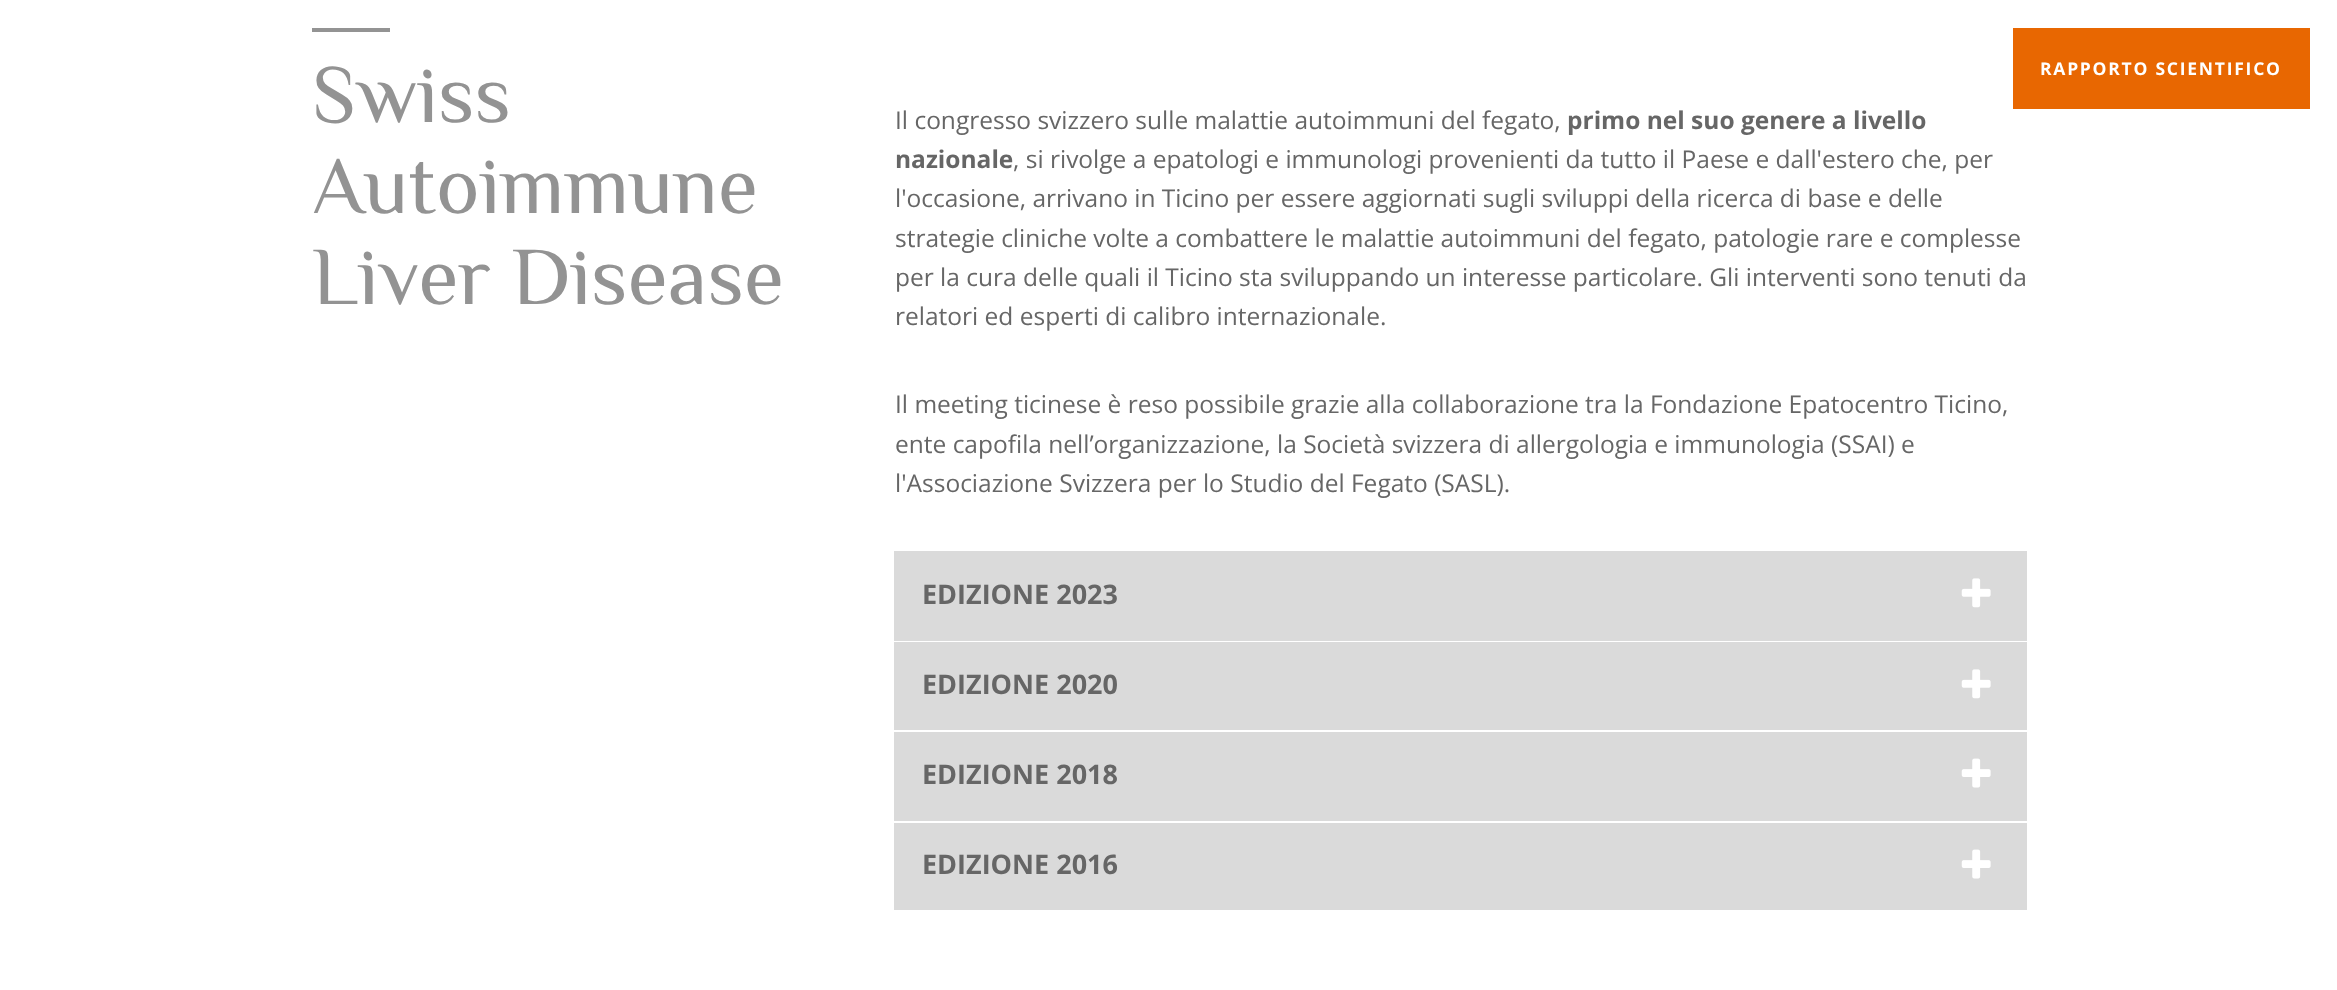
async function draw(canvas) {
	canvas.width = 2337;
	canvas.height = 990;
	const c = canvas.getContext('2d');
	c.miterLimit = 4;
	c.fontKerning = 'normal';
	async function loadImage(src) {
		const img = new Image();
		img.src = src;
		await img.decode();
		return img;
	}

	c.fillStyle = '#fff';
	c.fillRect(0, 0, 2337, 990);
	c.fillStyle = '#939393';
	c.fillRect(312, 28, 78, 4);
	c.font = '82.25px Philosopher';
	for (const [text, x, y] of [
		['Swiss', 312, 122],
		['Autoimmune', 312, 213],
		['Liver Disease', 312, 304],
	]) {
		c.fillText(text, x, y);
	}
	c.font = '24.5px Open Sans';
	c.fillStyle = '#666';
	c.fillText('Il congresso svizzero sulle malattie autoimmuni del fegato,', 895, 129);
	c.font = 'bold 24.5px Open Sans';
	c.fillText('primo nel suo genere a livello', 1567, 129);
	c.fillText('nazionale', 895, 168);
	c.font = '24.5px Open Sans';
	for (const [text, x, y] of [
		[', si rivolge a epatologi e immunologi provenienti da tutto il Paese e dall\'estero che, per', 1013, 168],
		['l\'occasione, arrivano in Ticino per essere aggiornati sugli sviluppi della ricerca di base e delle', 895, 207],
		['strategie cliniche volte a combattere le malattie autoimmuni del fegato, patologie rare e complesse', 895, 247],
		['per la cura delle quali il Ticino sta sviluppando un interesse particolare. Gli interventi sono tenuti da', 895, 286],
		['relatori ed esperti di calibro internazionale.', 895, 325],
		['Il meeting ticinese è reso possibile grazie alla collaborazione tra la Fondazione Epatocentro Ticino,', 895, 413],
		['ente capofila nell’organizzazione, la Società svizzera di allergologia e immunologia (SSAI) e', 895, 453],
		['l\'Associazione Svizzera per lo Studio del Fegato (SASL).', 895, 492],
	]) {
		c.fillText(text, x, y);
	}
	c.fillStyle = '#dadada';
	c.fillRect(894, 551, 1133, 90);
	c.font = 'bold 27px Open Sans';
	c.fillStyle = '#666';
	c.fillText('EDIZIONE 2023', 922, 604);
	c.drawImage(await loadImage('img1.png'), 1961, 578, 30, 30);
	c.fillStyle = '#dadada';
	c.fillRect(894, 642, 1133, 88);
	c.fillStyle = '#666';
	c.fillText('EDIZIONE 2020', 922, 694);
	c.drawImage(await loadImage('img1.png'), 1961, 669, 30, 30);
	c.fillStyle = '#dadada';
	c.fillRect(894, 732, 1133, 89);
	c.fillStyle = '#666';
	c.fillText('EDIZIONE 2018', 922, 784);
	c.drawImage(await loadImage('img2.png'), 1961, 758, 30, 30);
	c.fillStyle = '#dadada';
	c.fillRect(894, 823, 1133, 87);
	c.fillStyle = '#666';
	c.fillText('EDIZIONE 2016', 922, 874);
	c.drawImage(await loadImage('img2.png'), 1961, 849, 30, 30);
	c.fillStyle = '#e86701';
	c.fillRect(2013, 28, 297, 81);
	c.letterSpacing = '1.75px';
	c.font = 'bold 17.5px Open Sans';
	c.fillStyle = '#fff';
	c.fillText('RAPPORTO SCIENTIFICO', 2040, 75);
}

draw(document.querySelector('canvas'));
